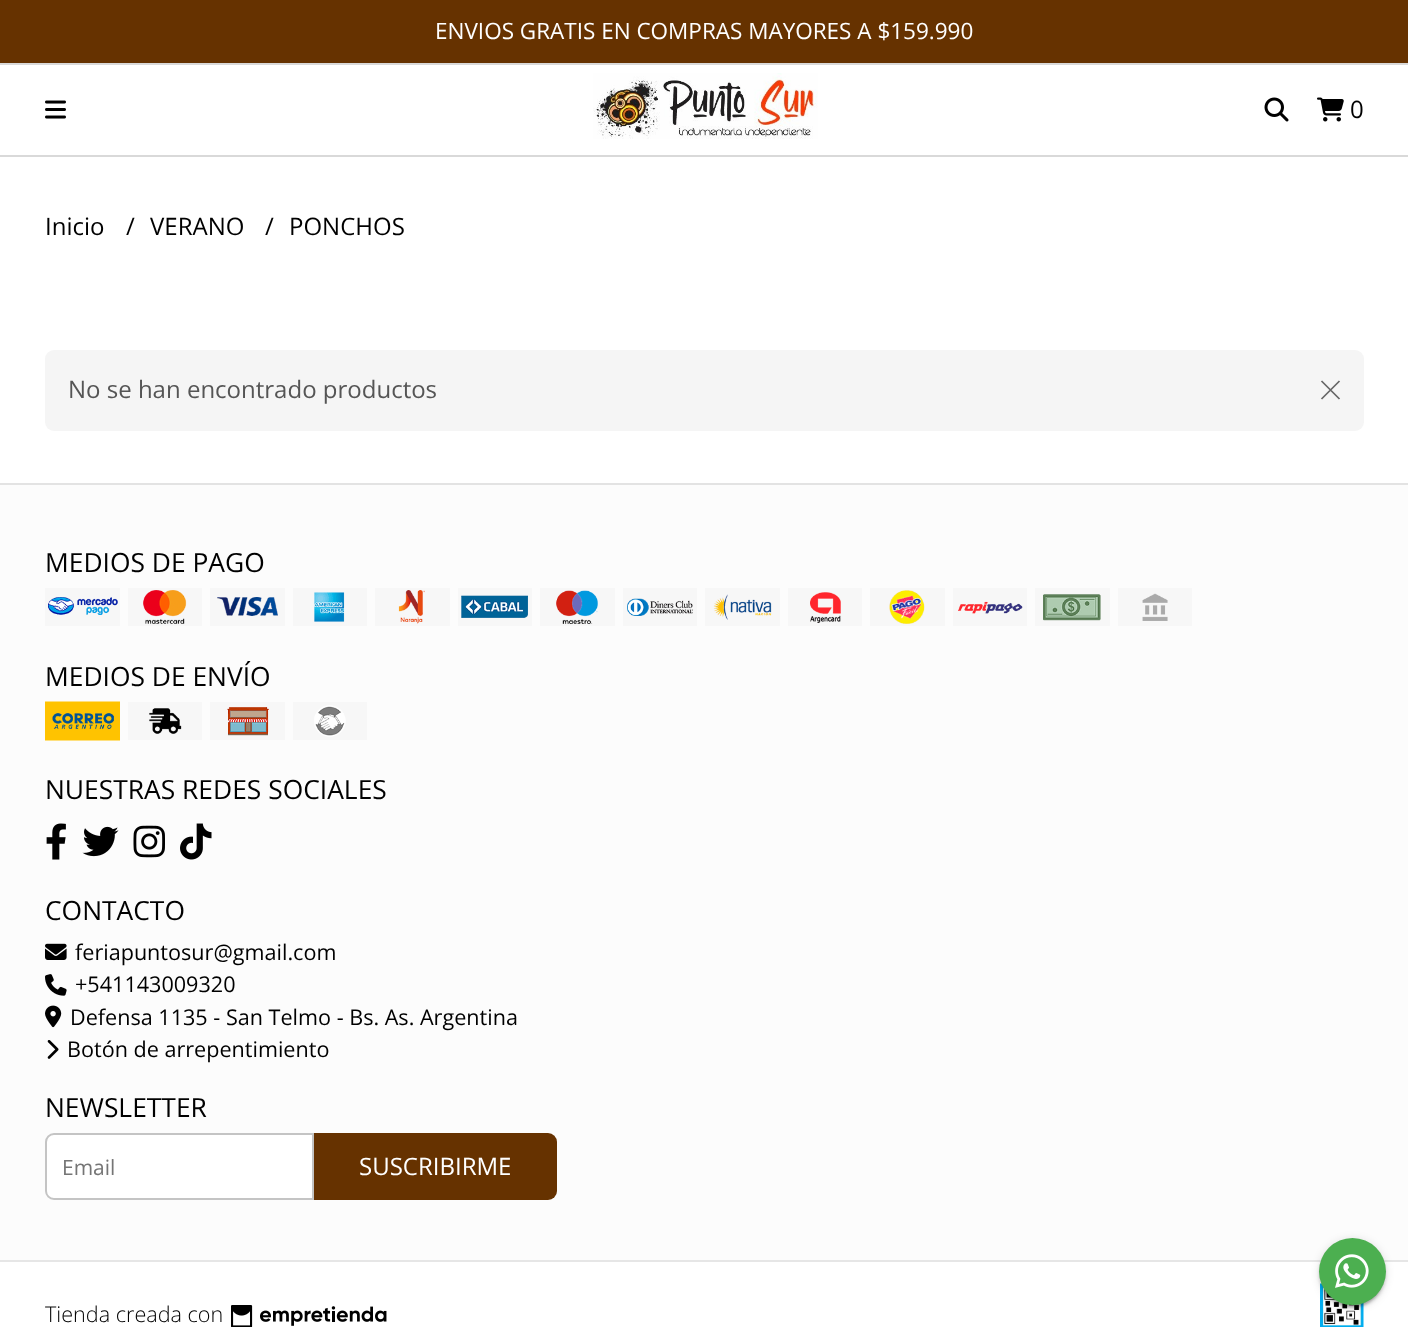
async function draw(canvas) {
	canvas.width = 1408;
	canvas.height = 1327;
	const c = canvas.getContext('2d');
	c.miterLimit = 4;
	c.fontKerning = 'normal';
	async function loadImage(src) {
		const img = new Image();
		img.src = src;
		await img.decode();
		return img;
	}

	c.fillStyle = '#fff';
	c.fillRect(0, 0, 1408, 1327);
	c.fillStyle = '#663200';
	c.fillRect(0, 0, 1408, 63);
	c.font = '22.5px Open Sans';
	c.fillStyle = '#fff';
	c.fillText('ENVIOS GRATIS EN COMPRAS MAYORES A $159.990', 435, 39);
	c.fillStyle = '#d9d9d9';
	c.fillRect(0, 63, 1408, 2);
	c.fillRect(0, 155, 1408, 2);
	c.drawImage(await loadImage('img1.png'), 45, 100, 21, 19);
	c.drawImage(await loadImage('img2.png'), 593, 73, 225, 66);
	c.drawImage(await loadImage('img3.png'), 1264, 97, 25, 25);
	c.drawImage(await loadImage('img4.png'), 1317, 97, 27, 25);
	c.font = '24px Open Sans';
	c.fillStyle = '#000';
	for (const [text, x, y] of [
		['0', 1350, 118],
		['Inicio', 45, 235],
		['/', 126, 235],
		['VERANO', 150, 235],
		['/', 265, 235],
		['PONCHOS', 289, 235],
	]) {
		c.fillText(text, x, y);
	}
	c.fillStyle = '#f5f5f5';
	c.beginPath();
	c.roundRect(45, 350, 1319, 81, 9);
	c.fill();
	c.fillStyle = '#555';
	c.fillText('No se han encontrado productos', 68, 398);
	c.beginPath();
	c.moveTo(1321.5, 381);
	c.lineTo(1339.5, 399);
	c.moveTo(1339.5, 381);
	c.lineTo(1321.5, 399);
	c.strokeStyle = '#666';
	c.lineWidth = 1.7;
	c.stroke();
	c.fillStyle = '#fcfcfc';
	c.fillRect(0, 485, 1408, 775);
	c.fillStyle = '#e3e3e3';
	c.fillRect(0, 483, 1408, 2);
	c.font = '26.4px Open Sans';
	c.fillStyle = '#000';
	c.fillText('MEDIOS DE PAGO', 45, 572);
	c.drawImage(await loadImage('img5.png'), 45, 588, 75, 38);
	c.drawImage(await loadImage('img6.png'), 128, 588, 74, 38);
	c.drawImage(await loadImage('img7.png'), 210, 588, 75, 38);
	c.drawImage(await loadImage('img8.png'), 293, 588, 74, 38);
	c.drawImage(await loadImage('img9.png'), 375, 588, 75, 38);
	c.drawImage(await loadImage('img10.png'), 458, 588, 74, 38);
	c.drawImage(await loadImage('img11.png'), 540, 588, 75, 38);
	c.drawImage(await loadImage('img12.png'), 623, 588, 74, 38);
	c.drawImage(await loadImage('img13.png'), 705, 588, 75, 38);
	c.drawImage(await loadImage('img14.png'), 788, 588, 74, 38);
	c.drawImage(await loadImage('img15.png'), 870, 588, 75, 38);
	c.drawImage(await loadImage('img16.png'), 953, 588, 74, 38);
	c.drawImage(await loadImage('img17.png'), 1035, 588, 75, 38);
	c.drawImage(await loadImage('img18.png'), 1118, 588, 74, 38);
	c.fillText('MEDIOS DE ENVÍO', 45, 686);
	c.drawImage(await loadImage('img19.png'), 45, 701, 75, 40);
	c.drawImage(await loadImage('img20.png'), 128, 702, 74, 38);
	c.drawImage(await loadImage('img21.png'), 210, 702, 75, 38);
	c.drawImage(await loadImage('img22.png'), 293, 702, 74, 38);
	c.fillText('NUESTRAS REDES SOCIALES', 45, 799);
	c.drawImage(await loadImage('img23.png'), 46, 823, 20, 37);
	c.drawImage(await loadImage('img24.png'), 82, 826, 37, 31);
	c.drawImage(await loadImage('img25.png'), 133, 825, 32, 33);
	c.drawImage(await loadImage('img26.png'), 180, 823, 32, 37);
	c.fillText('CONTACTO', 45, 920);
	c.drawImage(await loadImage('img27.png'), 45, 943, 22, 17);
	c.font = '21.6px Open Sans';
	c.fillText('feriapuntosur@gmail.com', 75, 960);
	c.drawImage(await loadImage('img28.png'), 45, 974, 22, 22);
	c.fillText('+541143009320', 75, 992);
	c.drawImage(await loadImage('img29.png'), 45, 1005, 17, 23);
	c.fillText('Defensa 1135 - San Telmo - Bs. As. Argentina', 70, 1025);
	c.drawImage(await loadImage('img30.png'), 47, 1040, 12, 19);
	c.fillText('Botón de arrepentimiento', 67, 1057);
	c.font = '26.4px Open Sans';
	c.fillText('NEWSLETTER', 45, 1117);
	c.fillStyle = '#fff';
	c.beginPath();
	c.roundRect(46, 1134, 267, 65, [8, 0, 0, 8]);
	c.fill();
	c.strokeStyle = '#c4c4c4';
	c.lineWidth = 2;
	c.stroke();
	c.font = '21px Open Sans';
	c.fillStyle = '#757575';
	c.fillText('Email', 62, 1175);
	c.fillStyle = '#663200';
	c.beginPath();
	c.roundRect(314, 1133, 243, 67, [0, 9, 9, 0]);
	c.fill();
	c.font = '24px Open Sans';
	c.fillStyle = '#fff';
	c.fillText('SUSCRIBIRME', 359, 1175);
	c.fillStyle = '#e6e6e6';
	c.fillRect(0, 1260, 1408, 2);
	c.font = '300 21.6px Open Sans';
	c.fillStyle = '#000';
	c.fillText('Tienda creada con', 45, 1322);
	c.drawImage(await loadImage('img31.png'), 231, 1305, 156, 22);
	c.drawImage(await loadImage('img32.png'), 1320, 1283, 44, 44);
	c.fillStyle = '#00000033';
	c.filter = 'blur(1px)';
	c.beginPath();
	c.roundRect(1322, 1245, 61, 62, 30.5);
	c.fill();
	c.filter = 'none';
	c.fillStyle = '#0000001f';
	c.filter = 'blur(4px)';
	c.beginPath();
	c.roundRect(1319, 1239, 67, 68, 33.5);
	c.fill();
	c.filter = 'none';
	c.fillStyle = '#00000024';
	c.filter = 'blur(1.5px)';
	c.beginPath();
	c.roundRect(1319, 1241, 67, 67, 33.5);
	c.fill();
	c.filter = 'none';
	c.fillStyle = '#4caf50';
	c.beginPath();
	c.arc(1352.5, 1271.5, 33.5, 0, 2 * Math.PI);
	c.fill();
	c.drawImage(await loadImage('img33.png'), 1335, 1254, 34, 34);
}

draw(document.querySelector('canvas'));
